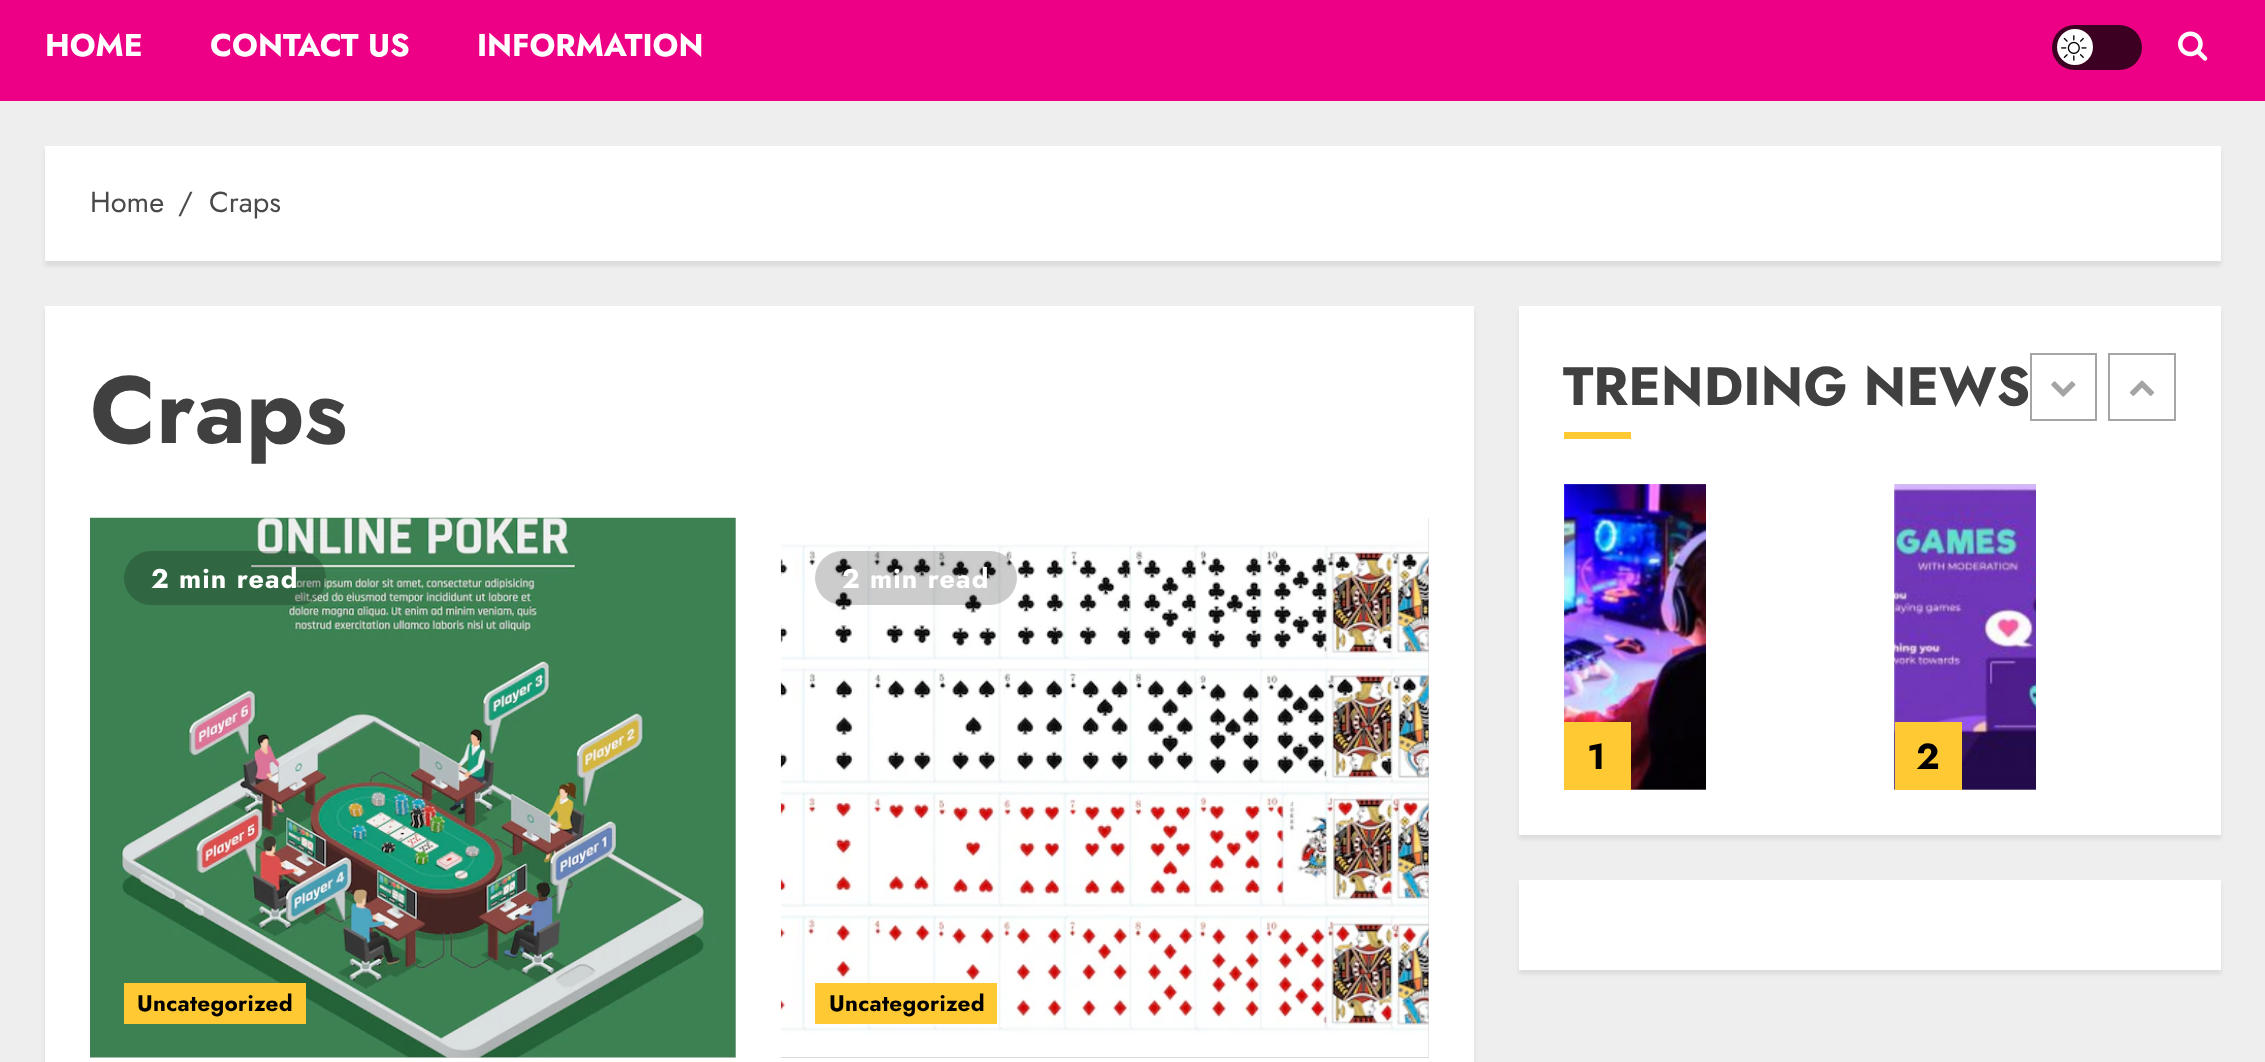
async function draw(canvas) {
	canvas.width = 2265;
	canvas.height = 1062;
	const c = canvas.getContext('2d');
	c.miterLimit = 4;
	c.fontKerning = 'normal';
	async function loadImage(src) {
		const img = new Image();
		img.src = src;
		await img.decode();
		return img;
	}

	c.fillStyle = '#eee';
	c.fillRect(0, 0, 2265, 1062);
	c.fillStyle = '#ed0086';
	c.fillRect(0, 0, 2265, 101);
	c.font = 'bold 31.5px Jost';
	c.fillStyle = '#fff';
	for (const [text, x, y] of [
		['HOME', 45, 56],
		['CONTACT US', 210, 56],
		['INFORMATION', 477, 56],
	]) {
		c.fillText(text, x, y);
	}
	c.fillStyle = '#3b0022';
	c.beginPath();
	c.roundRect(2052, 25, 90, 45, 22.5);
	c.fill();
	c.fillStyle = '#fff';
	c.beginPath();
	c.arc(2075, 47, 18, 0, 2 * Math.PI);
	c.fill();
	c.drawImage(await loadImage('img1.png'), 2061, 35, 26, 26);
	c.drawImage(await loadImage('img2.png'), 2178, 31, 30, 30);
	c.fillStyle = '#00000014';
	c.filter = 'blur(2px)';
	c.beginPath();
	c.rect(45, 151, 2176, 115);
	c.fill();
	c.filter = 'none';
	c.fillStyle = '#fff';
	c.fillRect(45, 146, 2176, 115);
	c.font = '29px Jost';
	c.fillStyle = '#4a4a4a';
	for (const [text, x, y] of [
		['Home', 90, 212],
		['/', 178, 212],
		['Craps', 209, 212],
	]) {
		c.fillText(text, x, y);
	}
	c.fillStyle = '#00000014';
	c.filter = 'blur(2px)';
	c.beginPath();
	c.rect(45, 311, 1429, 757);
	c.fill();
	c.filter = 'none';
	c.fillStyle = '#fff';
	c.fillRect(45, 306, 1429, 756);
	c.font = 'bold 94.5px Jost';
	c.fillStyle = '#404040';
	c.fillText('Craps', 90, 443);
	c.fillStyle = '#ccc';
	c.fillRect(90, 518, 646, 540);
	c.drawImage(await loadImage('img3.png'), 90, 517, 646, 541);
	c.fillStyle = '#00000033';
	c.beginPath();
	c.roundRect(124, 551, 202, 54, 27);
	c.fill();
	c.letterSpacing = '1.1px';
	c.font = 'bold 27px Jost';
	c.fillStyle = '#fff';
	c.fillText('2 min read', 151, 588);
	c.fillStyle = '#ffc934';
	c.fillRect(124, 983, 182, 41);
	c.letterSpacing = '0.25px';
	c.font = 'bold 22.5px Jost';
	c.fillStyle = '#000';
	c.fillText('Uncategorized', 137, 1011);
	c.fillStyle = '#ccc';
	c.fillRect(781, 518, 648, 540);
	c.drawImage(await loadImage('img4.png'), 780, 518, 649, 540);
	c.fillStyle = '#00000033';
	c.beginPath();
	c.roundRect(815, 551, 202, 54, 27);
	c.fill();
	c.letterSpacing = '1.1px';
	c.font = 'bold 27px Jost';
	c.fillStyle = '#fff';
	c.fillText('2 min read', 842, 588);
	c.fillStyle = '#ffc934';
	c.fillRect(815, 983, 182, 41);
	c.letterSpacing = '0.25px';
	c.font = 'bold 22.5px Jost';
	c.fillStyle = '#000';
	c.fillText('Uncategorized', 829, 1011);
	c.fillStyle = '#00000014';
	c.filter = 'blur(2px)';
	c.beginPath();
	c.rect(1519, 311, 702, 528);
	c.fill();
	c.filter = 'none';
	c.fillStyle = '#fff';
	c.fillRect(1519, 306, 702, 529);
	c.letterSpacing = '0px';
	c.font = 'bold 54px Jost';
	c.fillStyle = '#404040';
	c.fillText('TRENDING NEWS', 1563, 405);
	c.fillStyle = '#ffc934';
	c.fillRect(1564, 432, 67, 7);
	c.strokeStyle = '#a5a5a5';
	c.lineWidth = 2;
	c.strokeRect(2031, 354, 65, 66);
	c.drawImage(await loadImage('img5.png'), 2051, 381, 25, 16);
	c.strokeRect(2109, 354, 66, 66);
	c.drawImage(await loadImage('img6.png'), 2129, 380, 26, 16);
	c.fillStyle = '#ccc';
	c.fillRect(1564, 484, 142, 306);
	c.drawImage(await loadImage('img7.png'), 1564, 484, 142, 306);
	c.fillStyle = '#ffc934';
	c.fillRect(1564, 722, 67, 68);
	c.font = 'bold 36px Jost';
	c.fillStyle = '#000';
	c.fillText('1', 1587, 769);
	c.fillStyle = '#ccc';
	c.fillRect(1895, 484, 141, 306);
	c.drawImage(await loadImage('img8.png'), 1894, 484, 142, 306);
	c.fillStyle = '#ffc934';
	c.fillRect(1895, 722, 67, 68);
	c.fillStyle = '#000';
	c.fillText('2', 1916, 769);
	c.fillStyle = '#00000014';
	c.filter = 'blur(2px)';
	c.beginPath();
	c.rect(1519, 884, 702, 90);
	c.fill();
	c.filter = 'none';
	c.fillStyle = '#fff';
	c.fillRect(1519, 880, 702, 90);
}

draw(document.querySelector('canvas'));
